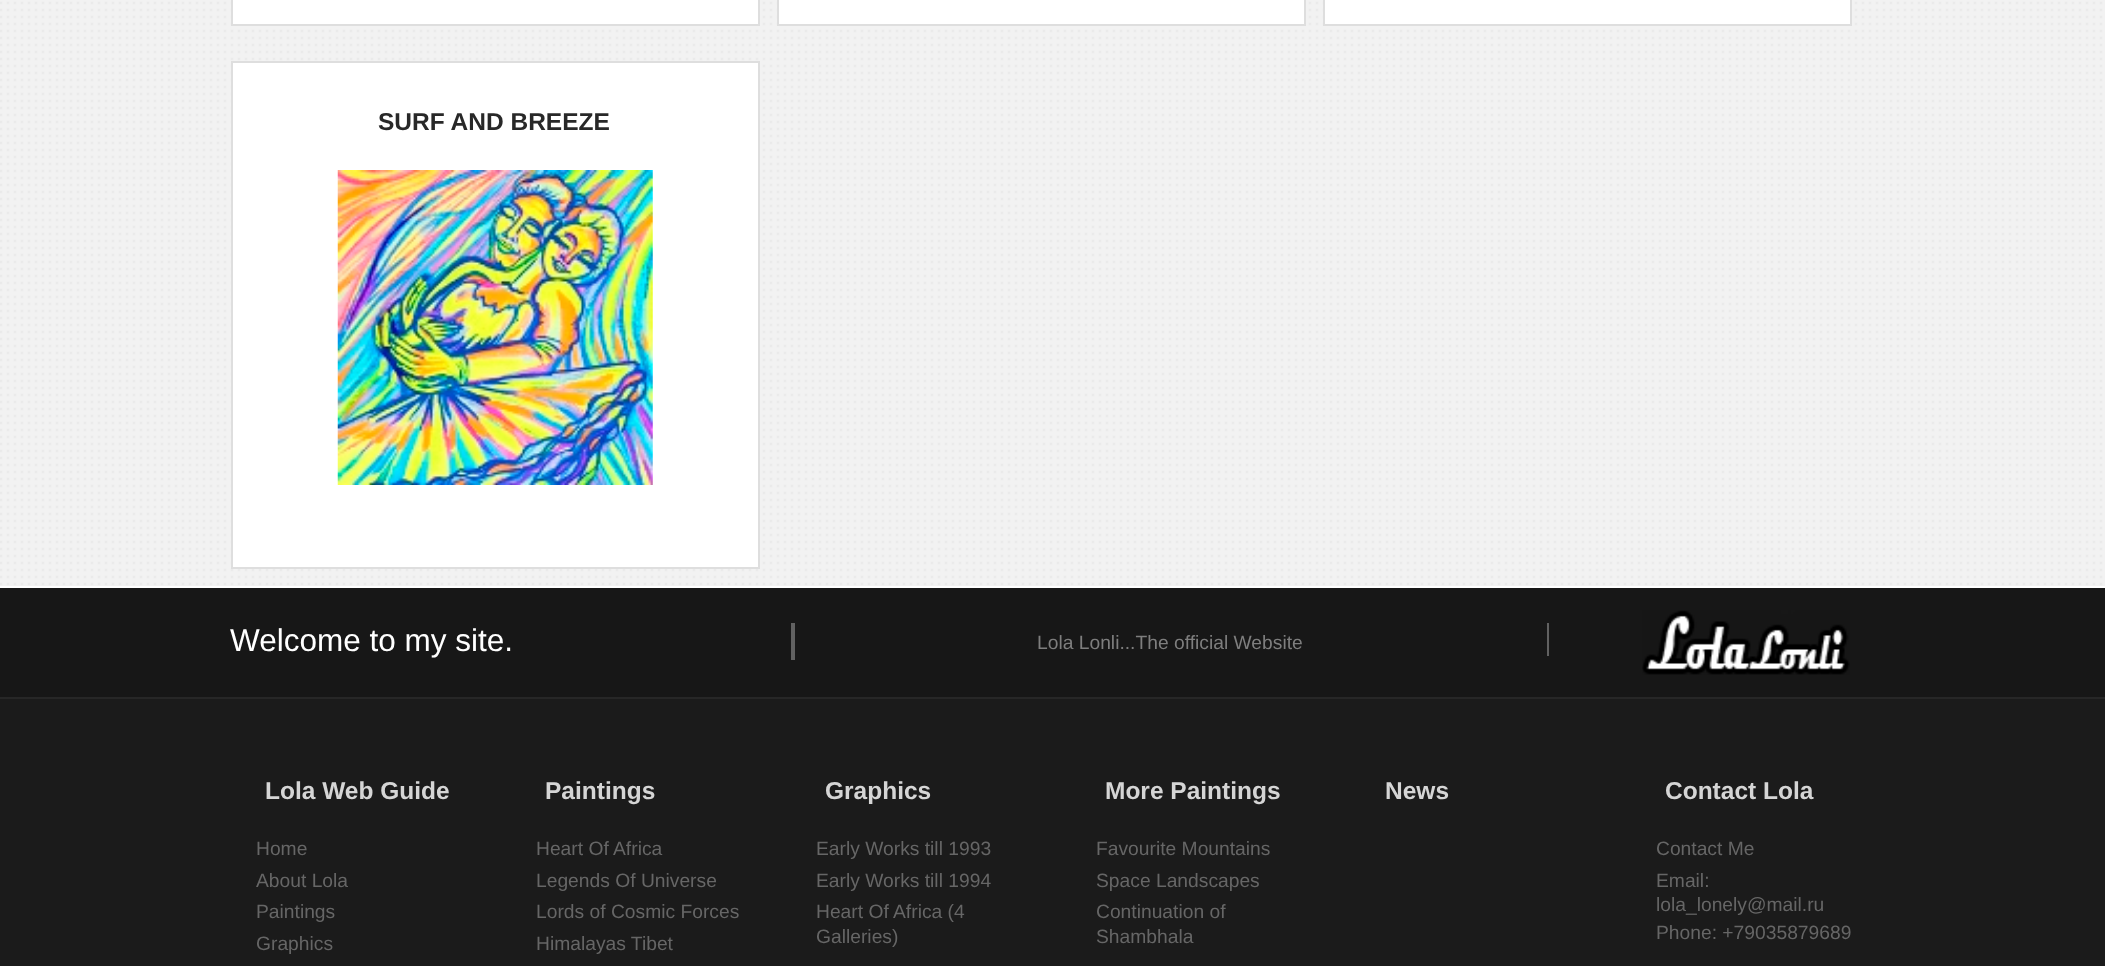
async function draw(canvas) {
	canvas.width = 2105;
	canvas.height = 966;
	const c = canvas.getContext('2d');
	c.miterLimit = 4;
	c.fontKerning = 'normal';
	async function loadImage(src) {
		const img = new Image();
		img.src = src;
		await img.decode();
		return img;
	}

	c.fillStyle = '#fff';
	c.fillRect(0, 0, 2105, 966);
	c.drawImage(await loadImage('img1.png'), 0, 0, 2105, 586);
	c.beginPath();
	c.rect(232, -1, 527, 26);
	c.fill();
	c.strokeStyle = '#dedede';
	c.lineWidth = 2;
	c.stroke();
	c.beginPath();
	c.rect(778, -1, 527, 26);
	c.fill();
	c.stroke();
	c.beginPath();
	c.rect(1324, -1, 527, 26);
	c.fill();
	c.stroke();
	c.beginPath();
	c.rect(232, 62, 527, 506);
	c.fill();
	c.stroke();
	c.font = 'bold 24.5px Liberation Sans';
	c.fillStyle = '#282828';
	c.fillText('SURF AND BREEZE', 378, 130);
	c.drawImage(await loadImage('img2.png'), 337, 170, 316, 315);
	c.fillStyle = '#171717';
	c.fillRect(0, 588, 2105, 109);
	c.fillStyle = '#616161';
	c.fillRect(791, 623, 4, 37);
	c.font = '31.5px Liberation Sans';
	c.fillStyle = '#fff';
	c.fillText('Welcome to my site.', 230, 651);
	c.fillStyle = '#616161';
	c.fillRect(1547, 623, 2, 33);
	c.font = '19.25px Liberation Sans';
	c.fillStyle = '#7e7e7e';
	c.fillText('Lola Lonli...The official Website', 1037, 649);
	c.drawImage(await loadImage('img3.png'), 1642, 610, 208, 65);
	c.fillStyle = '#1b1b1b';
	c.fillRect(0, 699, 2105, 267);
	c.fillStyle = '#272727';
	c.fillRect(0, 697, 2105, 2);
	c.font = 'bold 24.5px Liberation Sans';
	c.fillStyle = '#d5d5d5';
	c.fillText('Lola Web Guide', 265, 799);
	c.font = '19.25px Liberation Sans';
	c.fillStyle = '#666';
	for (const [text, x, y] of [
		['Home', 256, 855],
		['About Lola', 256, 887],
		['Paintings', 256, 918],
		['Graphics', 256, 950],
	]) {
		c.fillText(text, x, y);
	}
	c.font = 'bold 24.5px Liberation Sans';
	c.fillStyle = '#d5d5d5';
	c.fillText('Paintings', 545, 799);
	c.font = '19.25px Liberation Sans';
	c.fillStyle = '#666';
	for (const [text, x, y] of [
		['Heart Of Africa', 536, 855],
		['Legends Of Universe', 536, 887],
		['Lords of Cosmic Forces', 536, 918],
		['Himalayas Tibet', 536, 950],
	]) {
		c.fillText(text, x, y);
	}
	c.font = 'bold 24.5px Liberation Sans';
	c.fillStyle = '#d5d5d5';
	c.fillText('Graphics', 825, 799);
	c.font = '19.25px Liberation Sans';
	c.fillStyle = '#666';
	for (const [text, x, y] of [
		['Early Works till 1993', 816, 855],
		['Early Works till 1994', 816, 887],
		['Heart Of Africa (4', 816, 918],
		['Galleries)', 816, 943],
	]) {
		c.fillText(text, x, y);
	}
	c.font = 'bold 24.5px Liberation Sans';
	c.fillStyle = '#d5d5d5';
	c.fillText('More Paintings', 1105, 799);
	c.font = '19.25px Liberation Sans';
	c.fillStyle = '#666';
	for (const [text, x, y] of [
		['Favourite Mountains', 1096, 855],
		['Space Landscapes', 1096, 887],
		['Continuation of', 1096, 918],
		['Shambhala', 1096, 943],
	]) {
		c.fillText(text, x, y);
	}
	c.font = 'bold 24.5px Liberation Sans';
	c.fillStyle = '#d5d5d5';
	c.fillText('News', 1385, 799);
	c.fillText('Contact Lola', 1665, 799);
	c.font = '19.25px Liberation Sans';
	c.fillStyle = '#666';
	for (const [text, x, y] of [
		['Contact Me', 1656, 855],
		['Email:', 1656, 887],
		['lola_lonely@mail.ru', 1656, 911],
		['Phone: +79035879689', 1656, 939],
	]) {
		c.fillText(text, x, y);
	}
}

draw(document.querySelector('canvas'));
